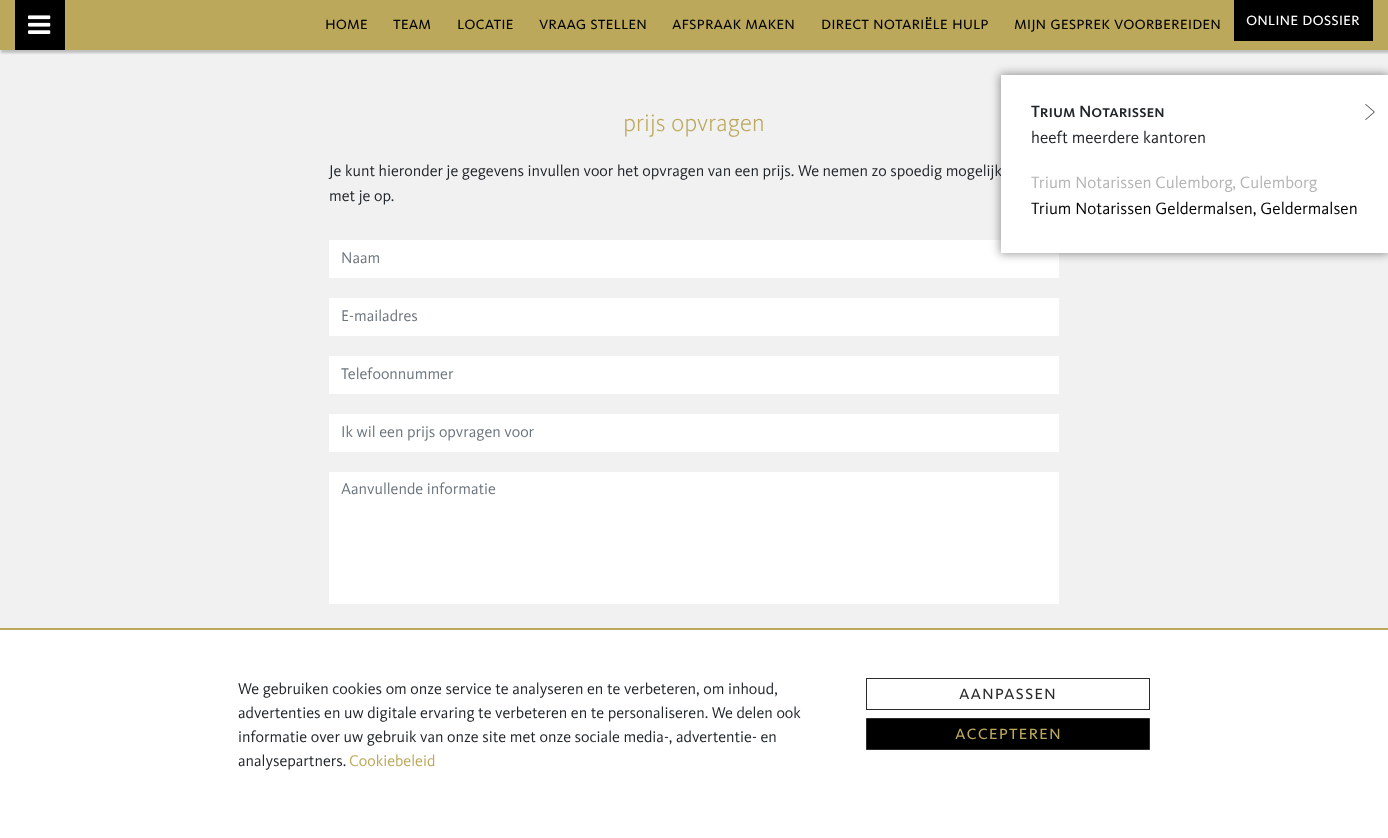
async function draw(canvas) {
	canvas.width = 1388;
	canvas.height = 838;
	const c = canvas.getContext('2d');
	c.miterLimit = 4;
	c.fontKerning = 'normal';
	async function loadImage(src) {
		const img = new Image();
		img.src = src;
		await img.decode();
		return img;
	}

	c.fillStyle = '#f1f1f1';
	c.fillRect(0, 0, 1388, 838);
	c.fillStyle = '#00000033';
	c.filter = 'blur(1px)';
	c.beginPath();
	c.rect(1, 1, 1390, 52);
	c.fill();
	c.filter = 'none';
	c.fillStyle = '#bba85a';
	c.fillRect(0, 0, 1388, 50);
	c.fillStyle = '#000';
	c.fillRect(15, 0, 50, 50);
	c.drawImage(await loadImage('img1.png'), 28, 15, 23, 19);
	c.font = '18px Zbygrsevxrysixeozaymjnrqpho';
	for (const [text, x, y] of [
		['home', 325, 29],
		['team', 393, 29],
		['locatie', 457, 29],
		['vraag stellen', 539, 29],
		['afspraak maken', 672, 29],
		['direct notariële hulp', 821, 29],
		['mijn gesprek voorbereiden', 1014, 29],
	]) {
		c.fillText(text, x, y);
	}
	c.fillRect(1234, 0, 139, 41);
	c.fillStyle = '#fff';
	c.fillText('online dossier', 1246, 25);
	c.font = '300 25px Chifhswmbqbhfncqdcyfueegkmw';
	c.fillStyle = '#bba85a';
	c.fillText('prijs opvragen', 623, 131);
	c.font = '16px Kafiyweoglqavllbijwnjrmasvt';
	c.fillStyle = '#212529';
	c.fillText('Je kunt hieronder je gegevens invullen voor het opvragen van een prijs. We nemen zo spoedig mogelijk', 329, 176);
	c.fillText('met je op.', 329, 201);
	c.fillStyle = '#fff';
	c.fillRect(329, 240, 730, 38);
	c.fillStyle = '#6c757d';
	c.fillText('Naam', 341, 263);
	c.fillStyle = '#fff';
	c.fillRect(329, 298, 730, 38);
	c.fillStyle = '#6c757d';
	c.fillText('E-mailadres', 341, 321);
	c.fillStyle = '#fff';
	c.fillRect(329, 356, 730, 38);
	c.fillStyle = '#6c757d';
	c.fillText('Telefoonnummer', 341, 379);
	c.fillStyle = '#fff';
	c.fillRect(329, 414, 730, 38);
	c.fillStyle = '#6c757d';
	c.fillText('Ik wil een prijs opvragen voor', 341, 437);
	c.fillStyle = '#fff';
	c.fillRect(329, 472, 730, 132);
	c.fillStyle = '#6c757d';
	c.fillText('Aanvullende informatie', 341, 494);
	c.fillStyle = '#00000066';
	c.filter = 'blur(5px)';
	c.beginPath();
	c.rect(1000, 74, 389, 180);
	c.fill();
	c.filter = 'none';
	c.fillStyle = '#fff';
	c.fillRect(1001, 75, 387, 178);
	c.font = '500 17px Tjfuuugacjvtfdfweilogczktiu';
	c.fillStyle = '#212529';
	c.fillText('Trium Notarissen', 1031, 117);
	c.drawImage(await loadImage('img2.png'), 1365, 104, 10, 16);
	c.font = '17px Kafiyweoglqavllbijwnjrmasvt';
	c.fillText('heeft meerdere kantoren', 1031, 143);
	c.fillStyle = '#b4b4b4';
	c.fillText('Trium Notarissen Culemborg, Culemborg', 1031, 188);
	c.fillStyle = '#000';
	c.fillText('Trium Notarissen Geldermalsen, Geldermalsen', 1031, 214);
	c.fillStyle = '#fff';
	c.fillRect(0, 630, 1388, 208);
	c.fillStyle = '#bba85a';
	c.fillRect(0, 628, 1388, 2);
	c.font = '16px Kafiyweoglqavllbijwnjrmasvt';
	c.fillStyle = '#212529';
	for (const [text, x, y] of [
		['We gebruiken cookies om onze service te analyseren en te verbeteren, om inhoud,', 238, 694],
		['advertenties en uw digitale ervaring te verbeteren en te personaliseren. We delen ook', 238, 718],
		['informatie over uw gebruik van onze site met onze sociale media-, advertentie- en', 238, 742],
		['analysepartners.', 238, 766],
	]) {
		c.fillText(text, x, y);
	}
	c.fillStyle = '#bba85a';
	c.fillText('Cookiebeleid', 349, 766);
	c.strokeStyle = '#2b2b2b';
	c.strokeRect(866.5, 678.5, 283, 31);
	c.letterSpacing = '1px';
	c.font = '20px Zbygrsevxrysixeozaymjnrqpho';
	c.fillStyle = '#2b2b2b';
	c.fillText('aanpassen', 959, 699);
	c.fillStyle = '#000';
	c.beginPath();
	c.rect(866.5, 718.5, 283, 31);
	c.fill();
	c.stroke();
	c.fillStyle = '#bba85a';
	c.fillText('accepteren', 955, 739);
}

draw(document.querySelector('canvas'));
